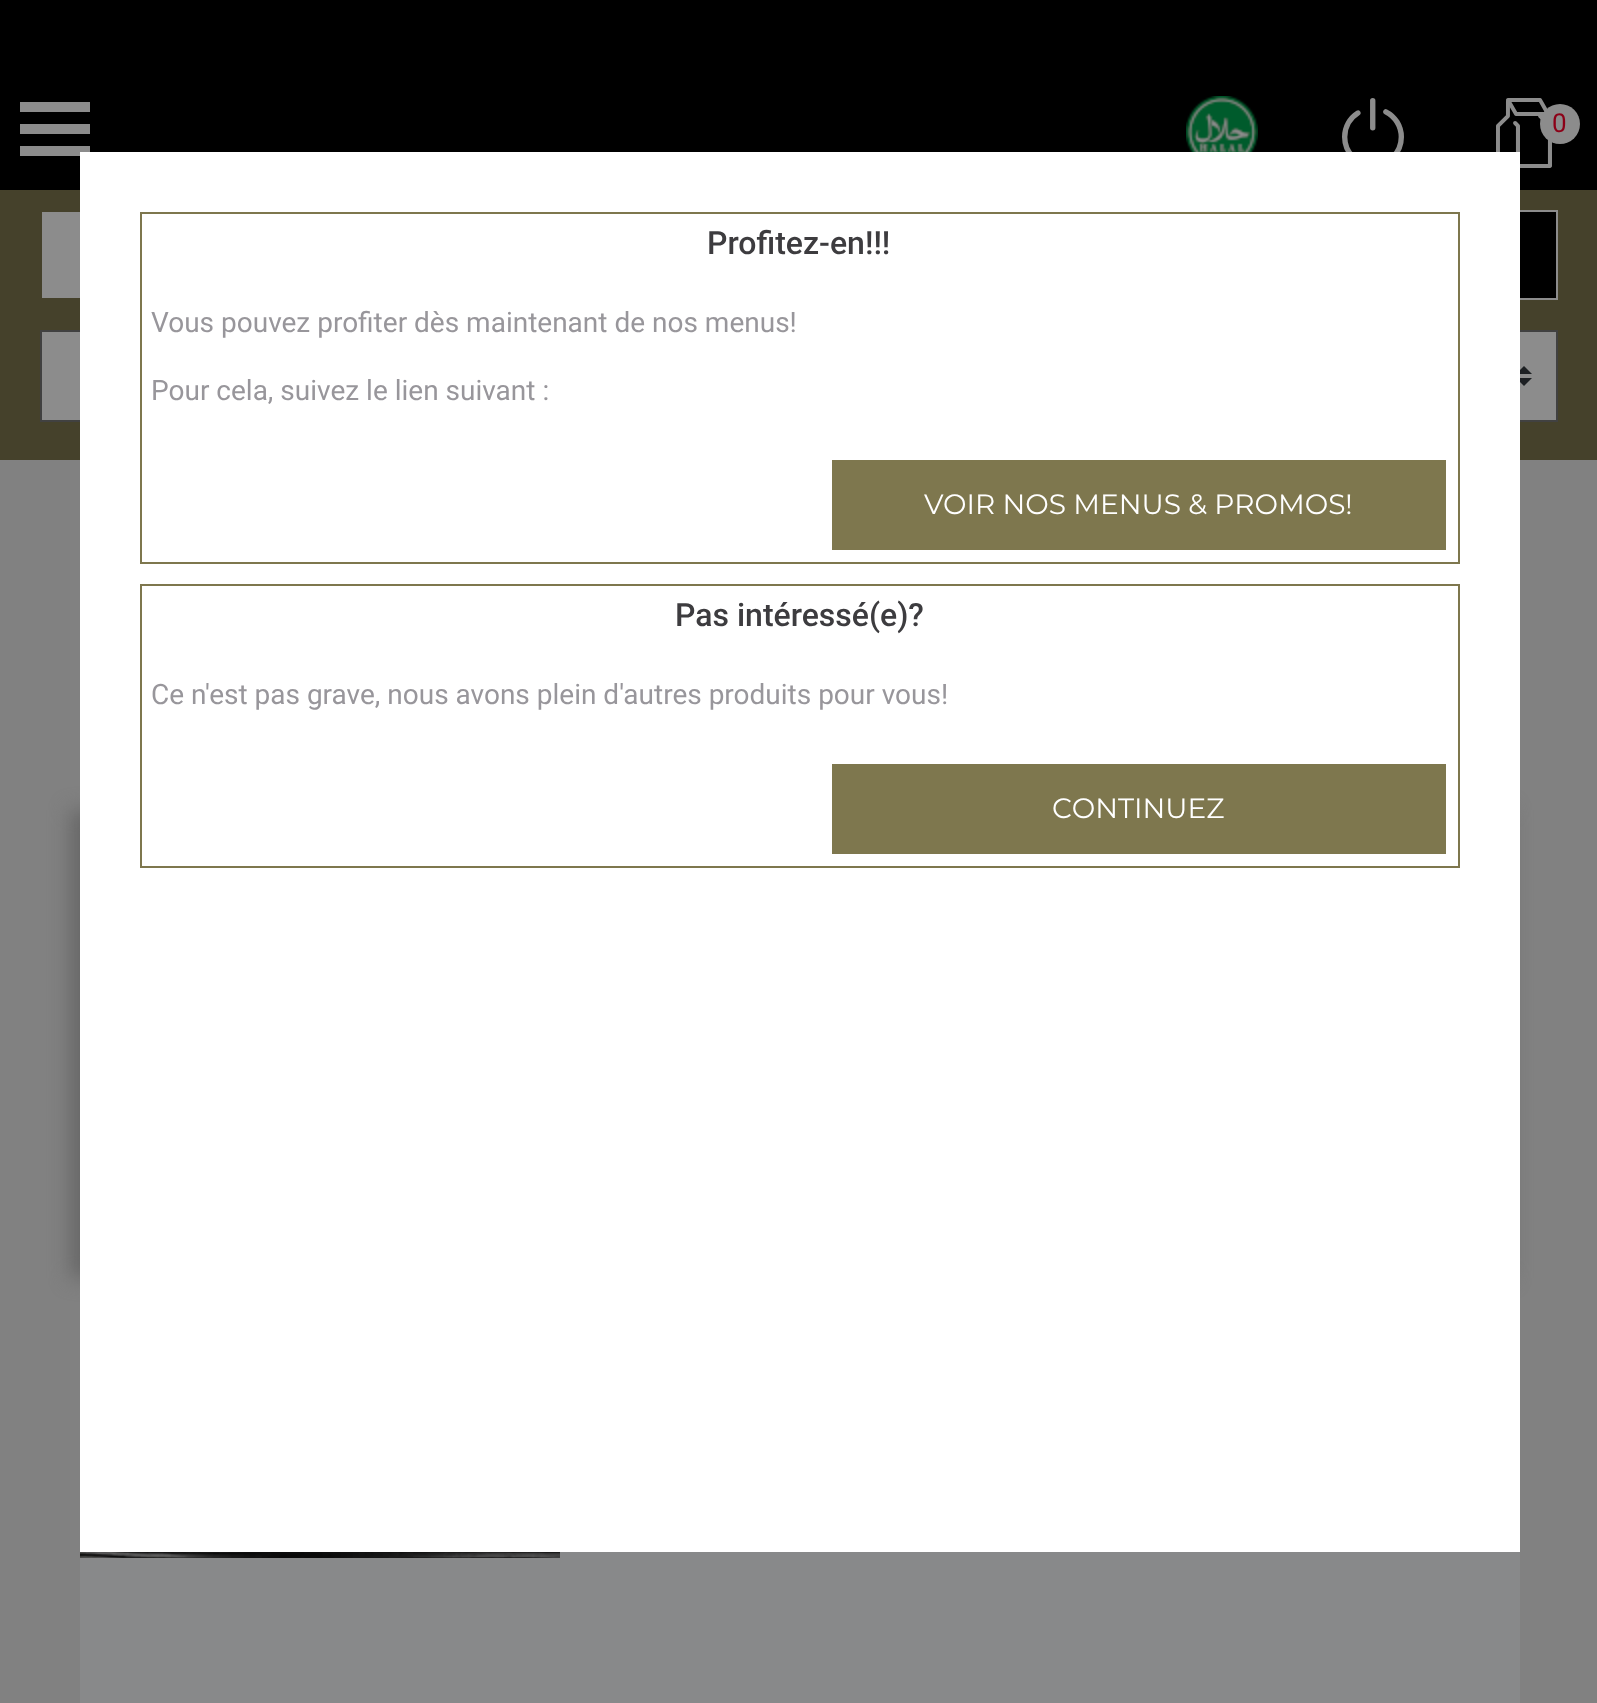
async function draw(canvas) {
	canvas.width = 1597;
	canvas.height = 1703;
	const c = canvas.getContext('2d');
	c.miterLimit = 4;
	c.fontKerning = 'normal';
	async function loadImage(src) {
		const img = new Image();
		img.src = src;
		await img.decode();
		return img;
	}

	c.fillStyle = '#818181';
	c.fillRect(0, 0, 1597, 1703);
	c.fillStyle = '#000';
	c.fillRect(0, 0, 1597, 70);
	c.fillStyle = '#00010145';
	c.filter = 'blur(10px)';
	c.beginPath();
	c.rect(0, 70, 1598, 120);
	c.fill();
	c.filter = 'none';
	for (const [x, y, w, h, color] of [
		[0, 70, 1597, 120, '#000'],
		[20, 102, 70, 10, '#8c8c8c'],
		[20, 124, 70, 10, '#8c8c8c'],
		[20, 146, 70, 10, '#8c8c8c'],
	]) {
		c.fillStyle = color;
		c.fillRect(x, y, w, h);
	}
	c.drawImage(await loadImage('img1.png'), 1186, 96, 72, 56);
	c.drawImage(await loadImage('img2.png'), 1342, 98, 62, 54);
	c.drawImage(await loadImage('img3.png'), 1496, 98, 56, 70);
	c.beginPath();
	c.arc(1560, 124, 20, 0, 2 * Math.PI);
	c.fill();
	c.font = '26px Roboto';
	c.fillStyle = '#8c0017';
	c.fillText('0', 1552, 132);
	for (const [x, y, w, h, color] of [
		[0, 190, 1597, 270, '#45412b'],
		[42, 212, 38, 86, '#8c8c8c'],
		[1520, 212, 36, 86, '#000'],
	]) {
		c.fillStyle = color;
		c.fillRect(x, y, w, h);
	}
	c.strokeStyle = '#8c8c8c';
	c.lineWidth = 2;
	c.strokeRect(811, 211, 746, 88);
	c.fillStyle = '#8c8c8c';
	c.fillRect(42, 332, 1514, 88);
	c.fillStyle = '#1d2023';
	c.beginPath();
	c.moveTo(1524, 366);
	c.lineTo(1516, 374);
	c.lineTo(1532, 374);
	c.closePath();
	c.moveTo(1524, 386);
	c.lineTo(1516, 378);
	c.lineTo(1532, 378);
	c.closePath();
	c.fill();
	c.strokeStyle = '#414141';
	c.strokeRect(41, 331, 1516, 90);
	c.fillStyle = '#676767';
	c.filter = 'blur(10px)';
	c.beginPath();
	c.rect(70, 810, 1440, 468);
	c.fill();
	c.filter = 'none';
	c.fillStyle = '#fff';
	c.fillRect(80, 152, 1440, 1400);
	c.strokeStyle = '#7e774e';
	c.strokeRect(141, 213, 1318, 350);
	c.font = '500 32px Roboto';
	c.fillStyle = '#3d3c3f';
	c.fillText('Profitez-en!!!', 707, 254);
	c.font = '28px Roboto';
	c.fillStyle = '#98969b';
	c.fillText('Vous pouvez profiter dès maintenant de nos menus!', 151, 332);
	c.fillText('Pour cela, suivez le lien suivant :', 151, 400);
	c.fillStyle = '#7e774e';
	c.fillRect(832, 460, 614, 90);
	c.font = '28px Montserrat';
	c.fillStyle = '#fff';
	c.fillText('VOIR NOS MENUS & PROMOS!', 924, 514);
	c.strokeRect(141, 585, 1318, 282);
	c.font = '500 32px Roboto';
	c.fillStyle = '#3d3c3f';
	c.fillText('Pas intéressé(e)?', 675, 626);
	c.font = '28px Roboto';
	c.fillStyle = '#98969b';
	c.fillText('Ce n\'est pas grave, nous avons plein d\'autres produits pour vous!', 151, 704);
	c.fillStyle = '#7e774e';
	c.fillRect(832, 764, 614, 90);
	c.font = '28px Montserrat';
	c.fillStyle = '#fff';
	c.fillText('CONTINUEZ', 1052, 818);
	c.fillStyle = '#88898a';
	c.fillRect(80, 1552, 1440, 151);
	c.drawImage(await loadImage('img4.png'), 80, 1552, 480, 6);
}

draw(document.querySelector('canvas'));
